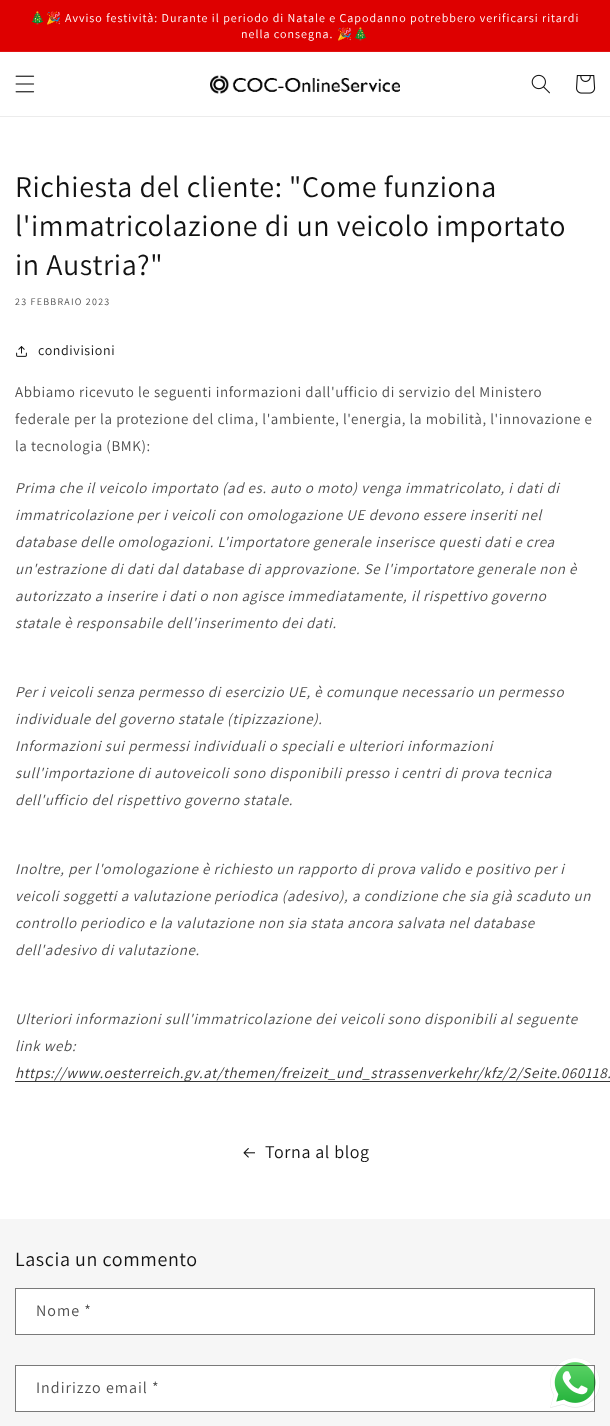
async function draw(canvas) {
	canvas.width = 610;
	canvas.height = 1426;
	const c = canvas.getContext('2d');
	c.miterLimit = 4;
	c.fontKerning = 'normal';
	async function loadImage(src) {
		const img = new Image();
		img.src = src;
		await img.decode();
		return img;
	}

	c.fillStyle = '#fff';
	c.fillRect(0, 0, 610, 1426);
	c.fillStyle = '#de0000';
	c.fillRect(0, 0, 610, 51);
	c.fillStyle = '#e11414';
	c.fillRect(0, 51, 610, 1);
	c.letterSpacing = '1px';
	c.font = '12px Noto Color Emoji';
	c.fillStyle = '#fff';
	c.fillText('🎄🎉', 30, 22);
	c.font = '12px Assistant';
	c.fillText('Avviso festività: Durante il periodo di Natale e Capodanno potrebbero verificarsi ritardi', 65, 22);
	c.fillText('nella consegna.', 241, 38);
	c.font = '12px Noto Color Emoji';
	c.fillText('🎉🎄', 337, 38);
	c.fillStyle = '#ececec';
	c.fillRect(0, 116, 610, 1);
	c.drawImage(await loadImage('img1.png'), 15, 75, 20, 18);
	c.drawImage(await loadImage('img2.png'), 210, 75, 190, 19);
	c.drawImage(await loadImage('img3.png'), 531, 74, 19, 20);
	c.drawImage(await loadImage('img4.png'), 576, 75, 20, 19);
	c.letterSpacing = '0.6px';
	c.font = '30px Assistant';
	c.fillStyle = '#121212';
	for (const [text, x, y] of [
		['Richiesta del cliente: "Come funziona', 15, 197],
		['l\'immatricolazione di un veicolo importato', 15, 236],
		['in Austria?"', 15, 275],
	]) {
		c.fillText(text, x, y);
	}
	c.letterSpacing = '1.25px';
	c.font = '10px Assistant';
	c.fillStyle = '#4d4d4d';
	c.fillText('23 FEBBRAIO 2023', 15, 305);
	c.drawImage(await loadImage('img5.png'), 16, 346, 11, 11);
	c.letterSpacing = '0.6px';
	c.font = '14px Assistant';
	c.fillStyle = '#121212';
	c.fillText('condivisioni', 38, 355);
	c.font = '15px Assistant';
	c.fillStyle = '#4d4d4d';
	for (const [text, x, y] of [
		['Abbiamo ricevuto le seguenti informazioni dall\'ufficio di servizio del Ministero', 15, 397],
		['federale per la protezione del clima, l\'ambiente, l\'energia, la mobilità, l\'innovazione e', 15, 424],
		['la tecnologia (BMK):', 15, 451],
	]) {
		c.fillText(text, x, y);
	}
	c.font = 'italic 15px Assistant';
	for (const [text, x, y] of [
		['Prima che il veicolo importato (ad es. auto o moto) venga immatricolato, i dati di', 15, 493],
		['immatricolazione per i veicoli con omologazione UE devono essere inseriti nel', 15, 520],
		['database delle omologazioni. L\'importatore generale inserisce questi dati e crea', 15, 547],
		['un\'estrazione di dati dal database di approvazione. Se l\'importatore generale non è', 15, 574],
		['autorizzato a inserire i dati o non agisce immediatamente, il rispettivo governo', 15, 601],
		['statale è responsabile dell\'inserimento dei dati.', 15, 628],
		['Per i veicoli senza permesso di esercizio UE, è comunque necessario un permesso', 15, 697],
		['individuale del governo statale (tipizzazione).', 15, 724],
		['Informazioni sui permessi individuali o speciali e ulteriori informazioni', 15, 751],
		['sull\'importazione di autoveicoli sono disponibili presso i centri di prova tecnica', 15, 778],
		['dell\'ufficio del rispettivo governo statale.', 15, 805],
		['Inoltre, per l\'omologazione è richiesto un rapporto di prova valido e positivo per i', 15, 874],
		['veicoli soggetti a valutazione periodica (adesivo), a condizione che sia già scaduto un', 15, 901],
		['controllo periodico e la valutazione non sia stata ancora salvata nel database', 15, 928],
		['dell\'adesivo di valutazione.', 15, 955],
		['Ulteriori informazioni sull\'immatricolazione dei veicoli sono disponibili al seguente', 15, 1024],
		['link web:', 15, 1051],
	]) {
		c.fillText(text, x, y);
	}
	c.fillStyle = '#363636';
	c.fillRect(15, 1081, 595, 1);
	c.fillStyle = '#353535';
	c.fillText('https://www.oesterreich.gv.at/themen/freizeit_und_strassenverkehr/kfz/2/Seite.060118.', 15, 1078);
	c.drawImage(await loadImage('img6.png'), 243, 1148, 12, 10);
	c.font = '18px Assistant';
	c.fillStyle = '#121212';
	c.fillText('Torna al blog', 265, 1158);
	c.fillStyle = '#f6f6f6';
	c.fillRect(0, 1219, 610, 207);
	c.font = '20px Assistant';
	c.fillStyle = '#121212';
	c.fillText('Lascia un commento', 15, 1266);
	c.fillStyle = '#fff';
	c.fillRect(16, 1289, 578, 45);
	c.strokeStyle = '#797979';
	c.strokeRect(15.5, 1288.5, 579, 46);
	c.letterSpacing = '1px';
	c.font = '16px Assistant';
	c.fillStyle = '#4d4d4d';
	c.fillText('Nome *', 36, 1316);
	c.fillStyle = '#fff';
	c.fillRect(16, 1366, 578, 45);
	c.drawImage(await loadImage('img7.png'), 550, 1358, 50, 50);
	c.strokeStyle = '#1212128c';
	c.strokeRect(15.5, 1365.5, 579, 46);
	c.fillStyle = '#4d4d4d';
	c.fillText('Indirizzo email *', 36, 1393);
}

draw(document.querySelector('canvas'));
